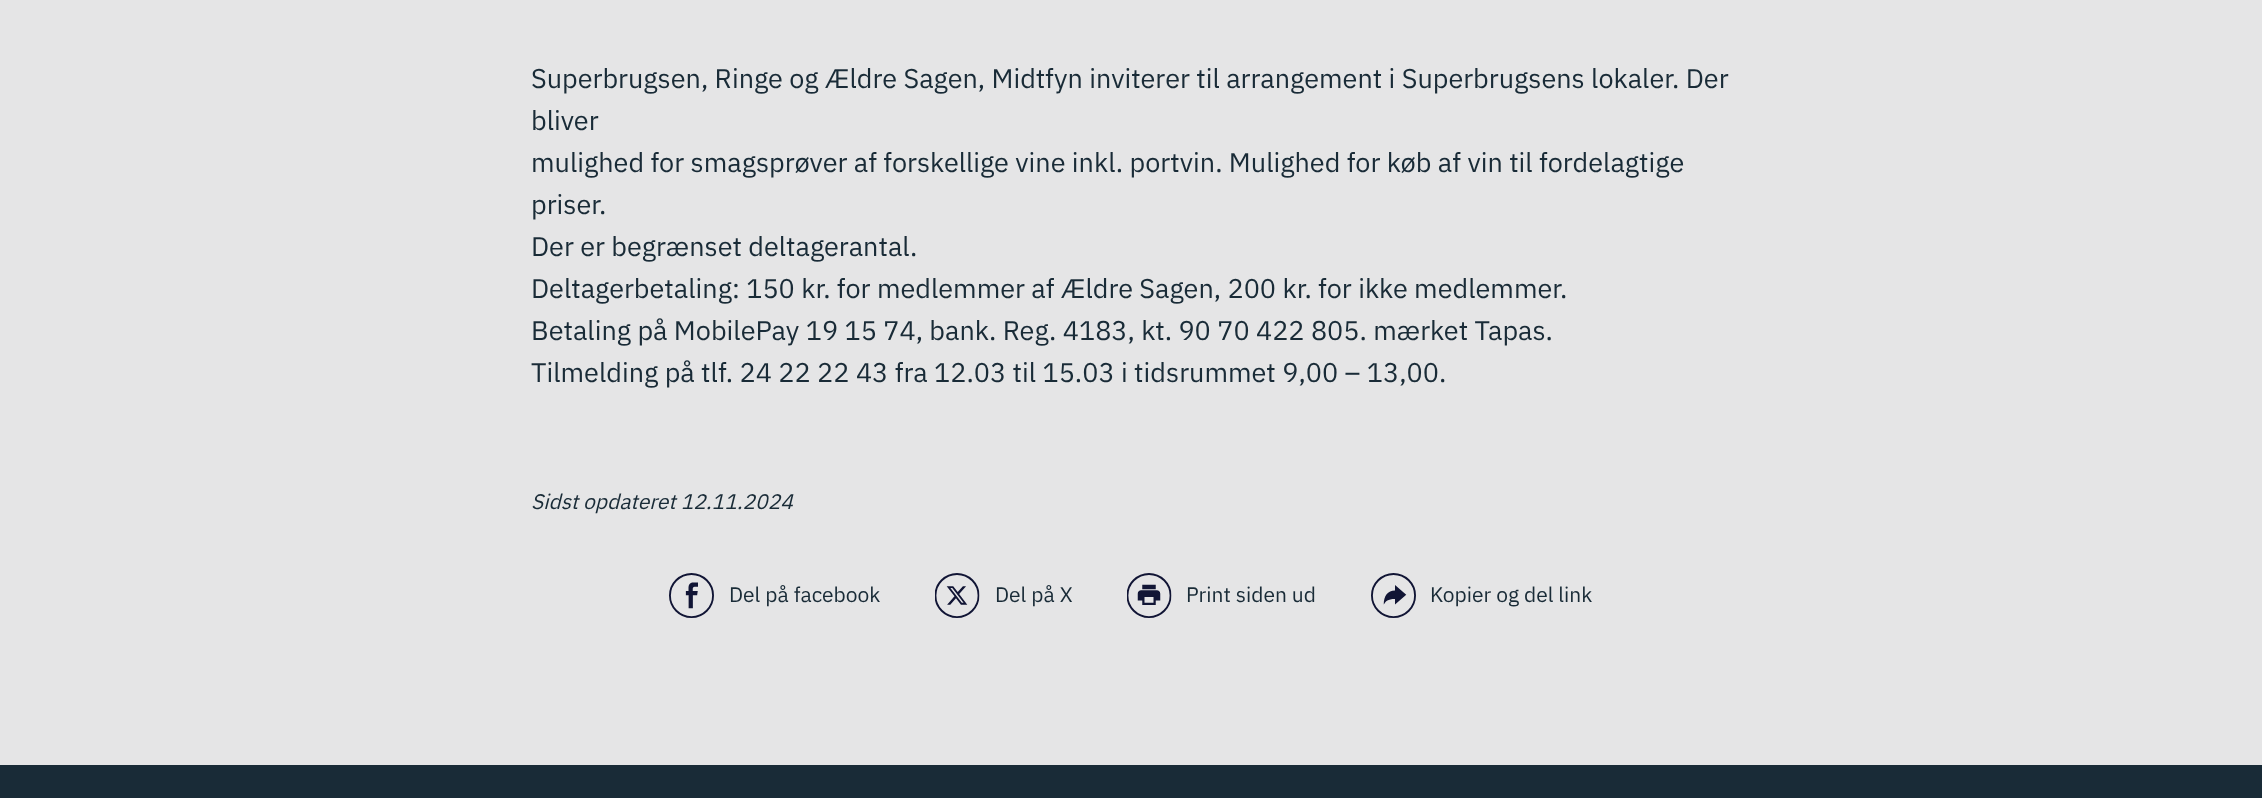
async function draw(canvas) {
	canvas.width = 2262;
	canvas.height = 798;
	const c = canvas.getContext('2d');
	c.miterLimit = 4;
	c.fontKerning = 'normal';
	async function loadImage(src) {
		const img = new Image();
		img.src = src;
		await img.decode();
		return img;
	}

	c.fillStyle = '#e5e5e6';
	c.fillRect(0, 0, 2262, 798);
	c.font = '27px IBM Plex Sans';
	c.fillStyle = '#192b37';
	for (const [text, x, y] of [
		['Superbrugsen, Ringe og Ældre Sagen, Midtfyn inviterer til arrangement i Superbrugsens lokaler. Der', 531, 88],
		['bliver', 531, 130],
		['mulighed for smagsprøver af forskellige vine inkl. portvin. Mulighed for køb af vin til fordelagtige', 531, 172],
		['priser.', 531, 214],
		['Der er begrænset deltagerantal.', 531, 256],
		['Deltagerbetaling: 150 kr. for medlemmer af Ældre Sagen, 200 kr. for ikke medlemmer.', 531, 298],
		['Betaling på MobilePay 19 15 74, bank. Reg. 4183, kt. 90 70 422 805. mærket Tapas.', 531, 340],
		['Tilmelding på tlf. 24 22 22 43 fra 12.03 til 15.03 i tidsrummet 9,00 – 13,00.', 531, 382],
	]) {
		c.fillText(text, x, y);
	}
	c.font = 'italic 21px IBM Plex Sans';
	c.fillText('Sidst opdateret 12.11.2024', 531, 509);
	c.drawImage(await loadImage('img1.png'), 669, 573, 45, 45);
	c.font = '21px IBM Plex Sans';
	c.fillText('Del på facebook', 729, 602);
	c.drawImage(await loadImage('img2.png'), 935, 573, 45, 45);
	c.fillText('Del på X', 995, 602);
	c.drawImage(await loadImage('img3.png'), 1127, 573, 45, 45);
	c.fillText('Print siden ud', 1186, 602);
	c.drawImage(await loadImage('img4.png'), 1371, 573, 45, 45);
	c.fillText('Kopier og del link', 1430, 602);
	c.fillRect(0, 765, 2262, 33);
}

draw(document.querySelector('canvas'));
